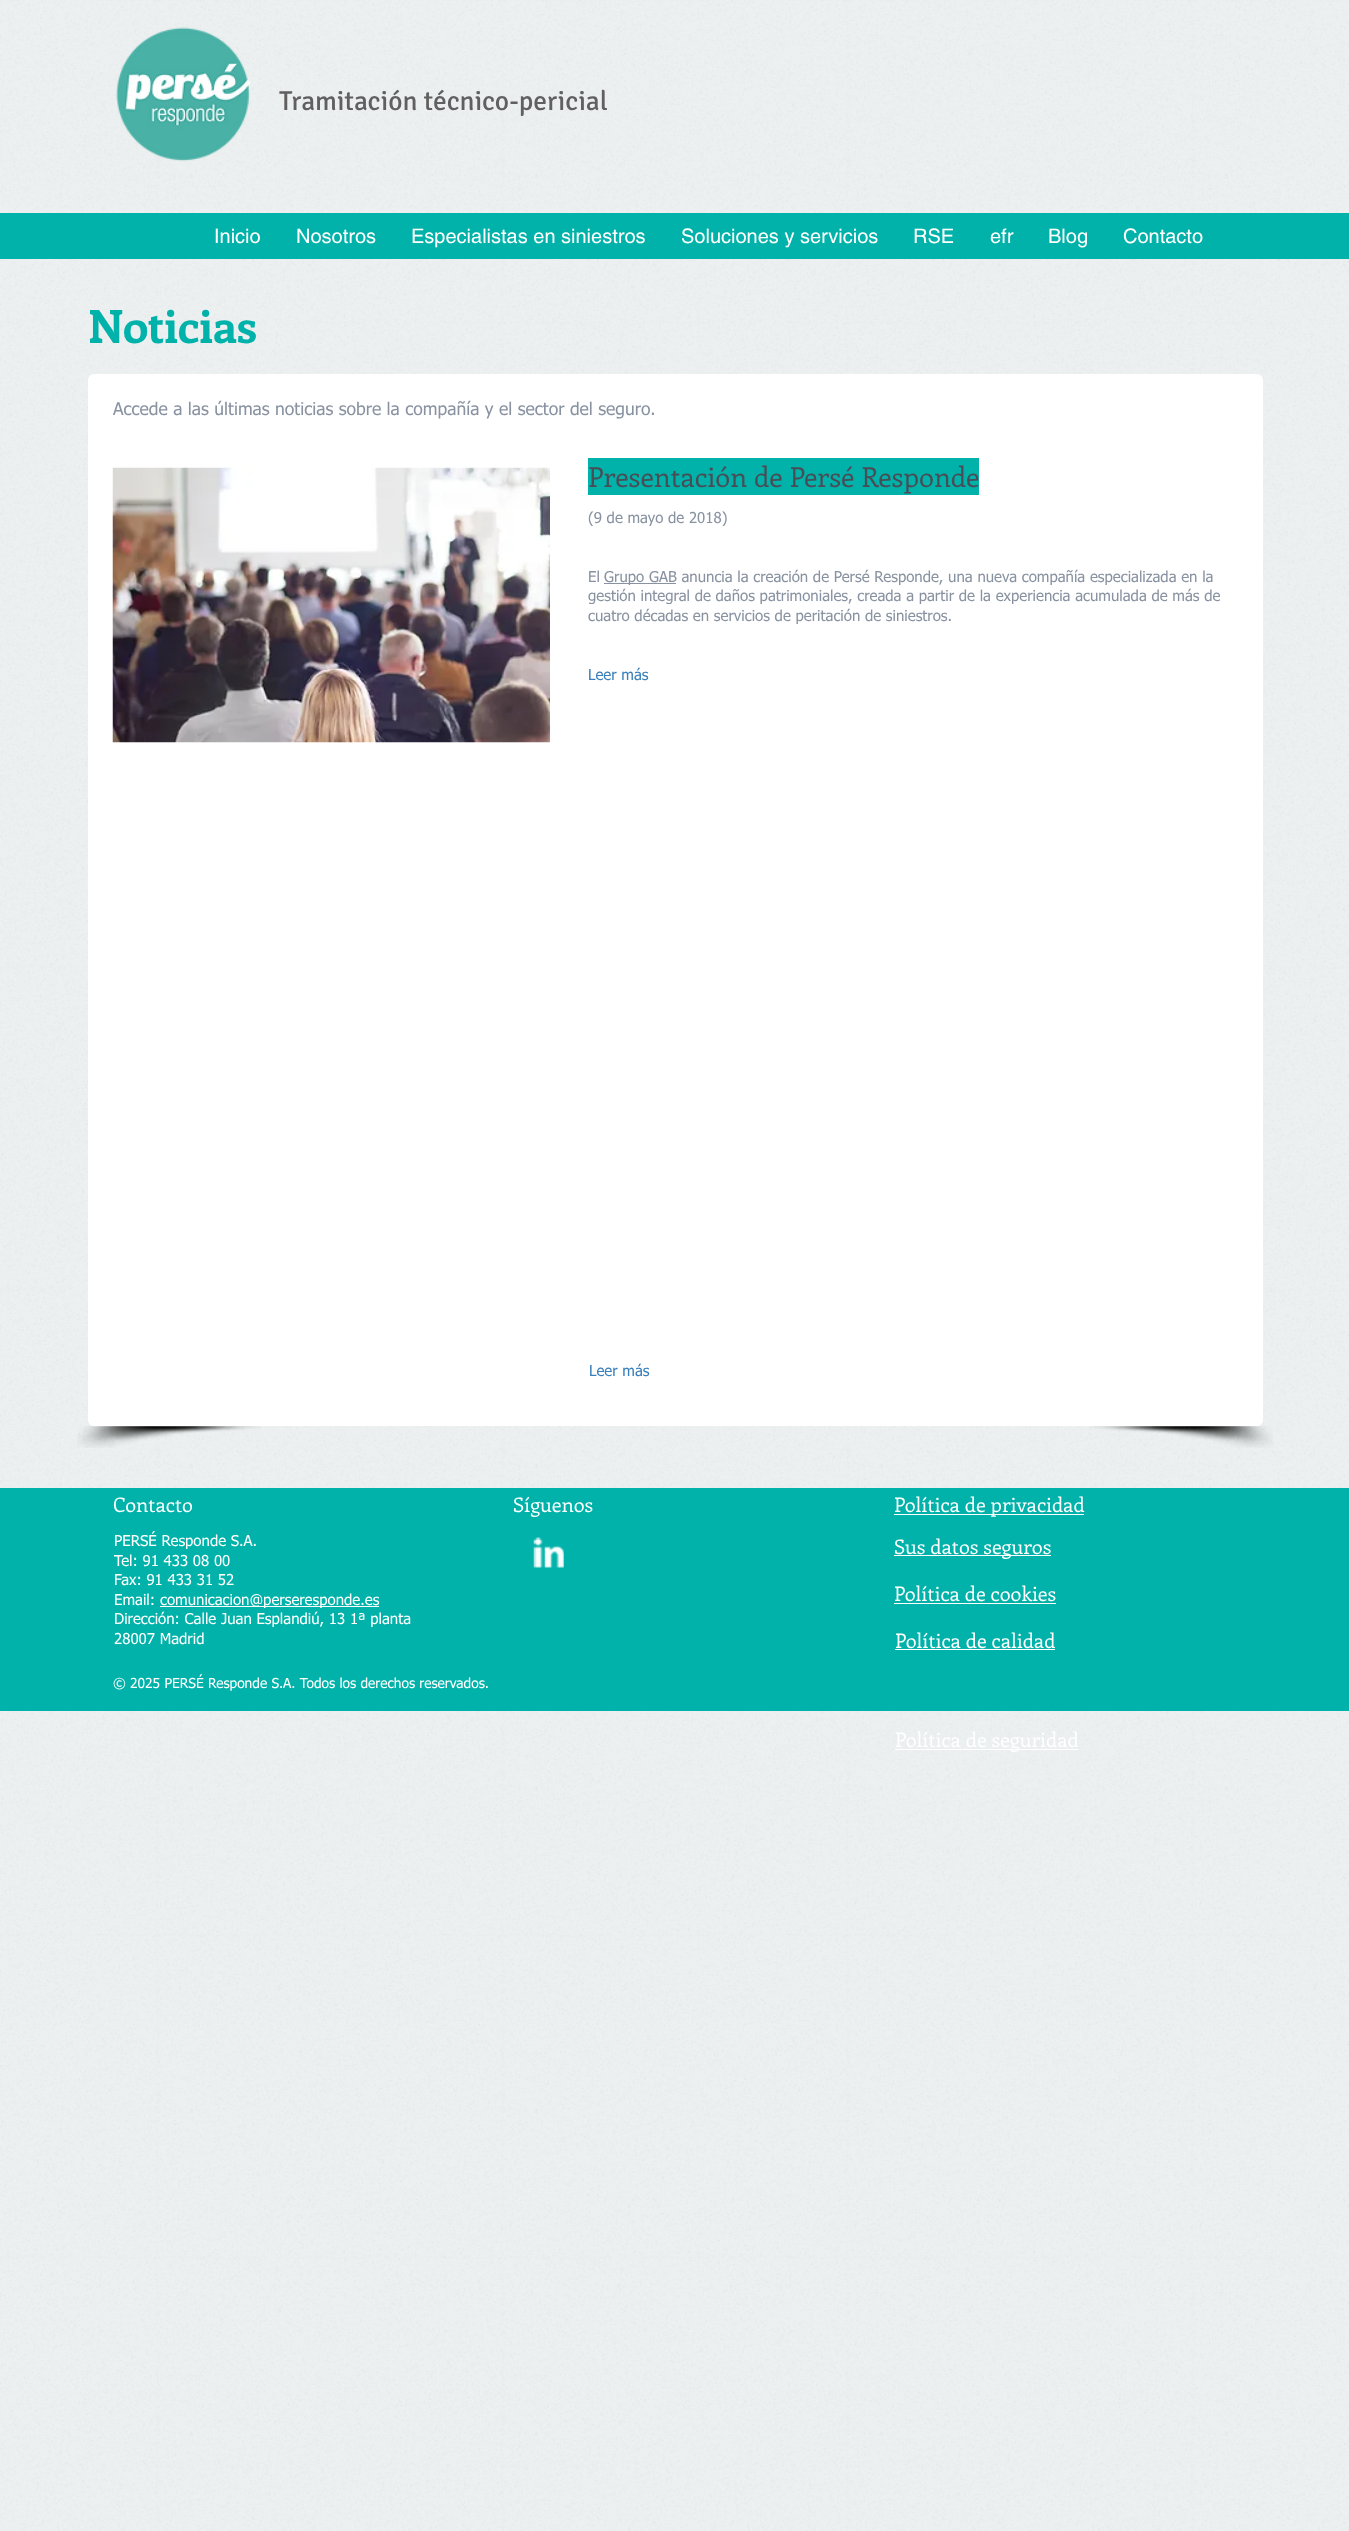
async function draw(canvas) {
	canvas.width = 1349;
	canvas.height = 2531;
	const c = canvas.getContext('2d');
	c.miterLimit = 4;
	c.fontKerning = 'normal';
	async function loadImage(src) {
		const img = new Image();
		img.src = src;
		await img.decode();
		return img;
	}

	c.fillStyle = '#ecf0f1';
	c.fillRect(0, 0, 1349, 2531);
	c.drawImage(await loadImage('img1.png'), 0, 0, 1349, 2531);
	c.drawImage(await loadImage('img2.png'), 116, 27, 135, 135);
	c.font = '27.5px Signika';
	c.fillStyle = '#616060';
	c.fillText('Tramitación técnico-pericial', 279, 110);
	c.fillStyle = '#00b2a9';
	c.fillRect(0, 213, 1349, 46);
	c.font = '20px helvetica';
	c.fillStyle = '#fff';
	for (const [text, x, y] of [
		['Inicio', 214, 243],
		['Nosotros', 296, 243],
		['Especialistas en siniestros', 411, 243],
		['Soluciones y servicios', 681, 243],
		['RSE', 913, 243],
		['efr', 990, 243],
		['Blog', 1048, 243],
		['Contacto', 1123, 243],
	]) {
		c.fillText(text, x, y);
	}
	c.font = 'bold 46px Enriqueta';
	c.fillStyle = '#00b2a9';
	c.fillText('Noticias', 88, 343);
	c.fillStyle = '#fff';
	c.beginPath();
	c.roundRect(88, 374, 1175, 1052, 6);
	c.fill();
	c.font = '17.5px tahoma';
	c.fillStyle = '#8892a1';
	c.fillText('Accede a las últimas noticias sobre la compañía y el sector del seguro.', 113, 415);
	c.drawImage(await loadImage('img3.png'), 112, 467, 438, 276);
	c.fillStyle = '#00b2a9';
	c.fillRect(588, 458, 391, 37);
	c.font = '27.5px Enriqueta';
	c.fillStyle = '#484d56';
	c.fillText('Presentación de Persé Responde', 588, 487);
	c.font = '15px tahoma';
	c.fillStyle = '#8892a1';
	c.fillText('(9 de mayo de 2018)', 588, 523);
	c.fillText('El', 588, 582);
	c.fillRect(604, 583, 72, 1);
	for (const [text, x, y] of [
		['Grupo GAB anuncia la creación de Persé Responde, una nueva compañía especializada en la', 604, 582],
		['gestión integral de daños patrimoniales, creada a partir de la experiencia acumulada de más de', 588, 601],
		['cuatro décadas en servicios de peritación de siniestros.', 588, 621],
	]) {
		c.fillText(text, x, y);
	}
	c.fillStyle = '#387fbb';
	c.fillText('Leer más', 588, 680);
	c.drawImage(await loadImage('img4.png'), 77, 1426, 184, 22);
	c.drawImage(await loadImage('img5.png'), 1089, 1426, 184, 22);
	c.fillText('Leer más', 589, 1376);
	c.fillStyle = '#00b2a9';
	c.fillRect(0, 1488, 1349, 223);
	c.font = '20px Enriqueta';
	c.fillStyle = '#fff';
	c.fillText('Contacto', 113, 1512);
	c.fillText('Síguenos', 513, 1512);
	c.fillRect(894, 1514, 190, 1);
	c.fillText('Política de privacidad', 894, 1512);
	c.font = '15px tahoma';
	for (const [text, x, y] of [
		['PERSÉ Responde S.A.', 114, 1546],
		['Tel: 91 433 08 00', 114, 1566],
		['Fax: 91 433 31 52', 114, 1585],
		['Email:', 114, 1605],
	]) {
		c.fillText(text, x, y);
	}
	c.fillRect(160, 1606, 219, 1);
	for (const [text, x, y] of [
		['comunicacion@perseresponde.es', 160, 1605],
		['Dirección: Calle Juan Esplandiú, 13 1ª planta', 114, 1624],
		['28007 Madrid', 114, 1644],
	]) {
		c.fillText(text, x, y);
	}
	c.font = '13.75px tahoma';
	c.fillText('© 2025 PERSÉ Responde S.A. Todos los derechos reservados.', 113, 1688);
	c.drawImage(await loadImage('img6.png'), 533, 1537, 31, 31);
	c.fillRect(894, 1555, 157, 1);
	c.font = '20px Enriqueta';
	c.fillText('Sus datos seguros', 894, 1554);
	c.fillText('Política de cookies', 894, 1601);
	c.fillRect(894, 1603, 162, 1);
	c.fillText('Política de calidad', 895, 1648);
	c.fillRect(895, 1649, 160, 1);
	c.fillRect(895, 1749, 184, 1);
	c.fillText('Política de seguridad', 895, 1747);
}

draw(document.querySelector('canvas'));
